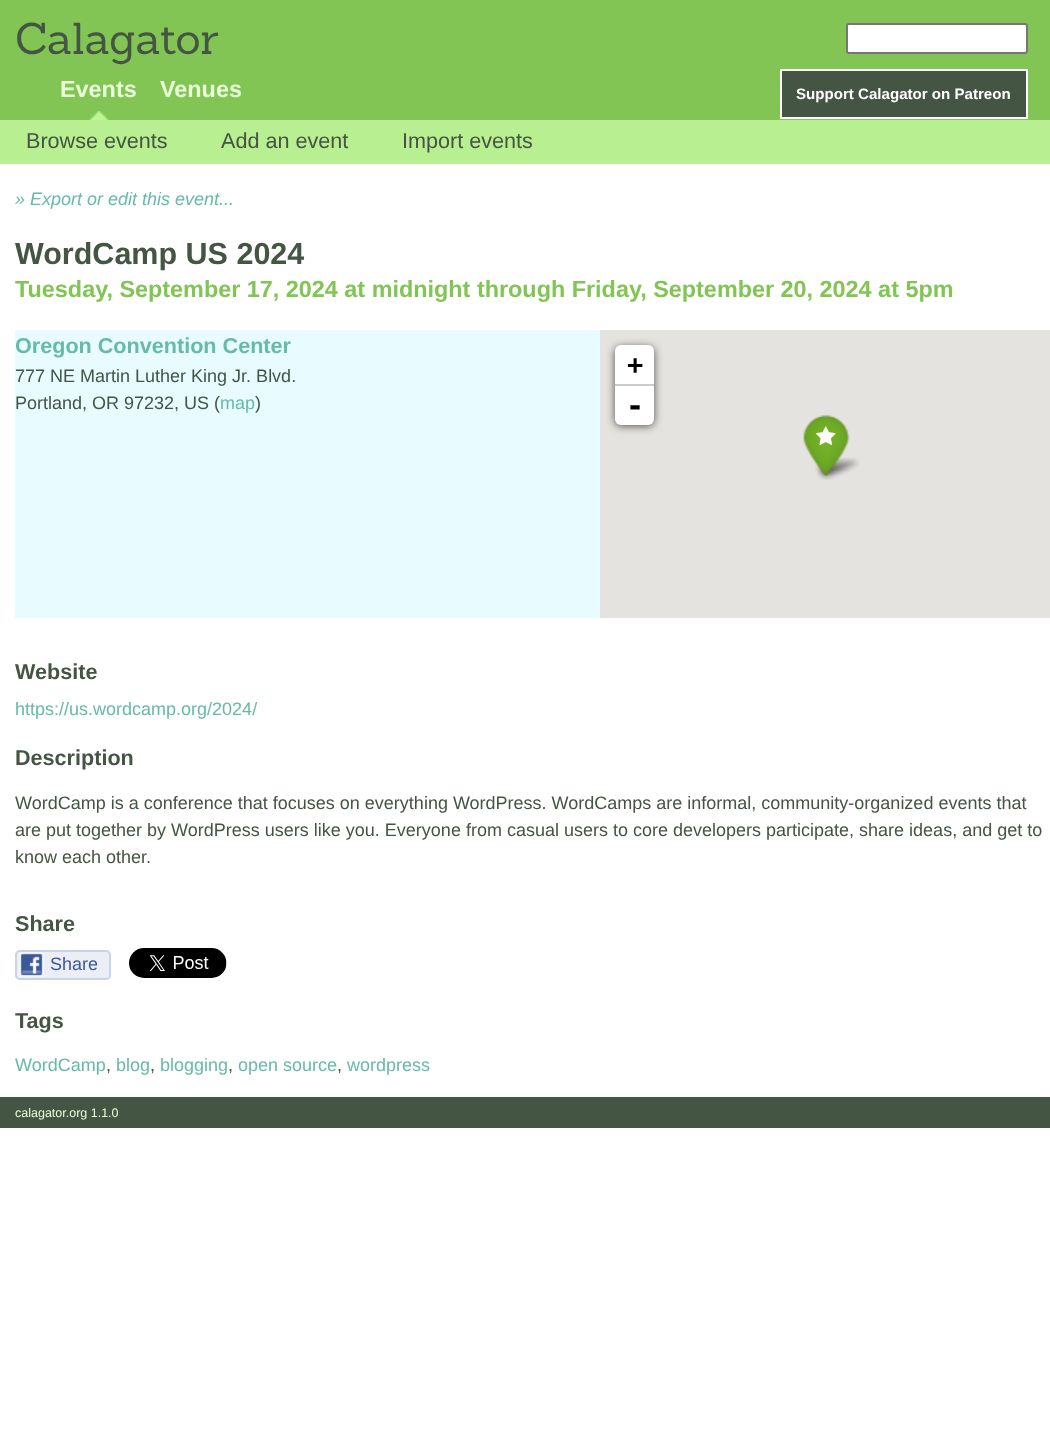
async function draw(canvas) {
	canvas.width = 1050;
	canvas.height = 1431;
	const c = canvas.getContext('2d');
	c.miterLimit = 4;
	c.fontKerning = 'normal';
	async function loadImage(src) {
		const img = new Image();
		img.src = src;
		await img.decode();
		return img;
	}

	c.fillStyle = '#fff';
	c.fillRect(0, 0, 1050, 1431);
	c.fillStyle = '#82c555';
	c.fillRect(0, 0, 1050, 120);
	c.font = '43.5px Sanchez';
	c.fillStyle = '#454';
	c.fillText('Calagator', 15, 54);
	c.fillStyle = '#fff';
	c.beginPath();
	c.roundRect(847, 24, 180, 29, 2);
	c.fill();
	c.strokeStyle = '#767676';
	c.lineWidth = 2;
	c.stroke();
	c.drawImage(await loadImage('img1.png'), 90, 111, 18, 9);
	c.font = 'bold 23.4px Liberation Sans';
	c.fillStyle = '#e8ffd9';
	c.fillText('Events', 60, 97);
	c.fillText('Venues', 160, 97);
	c.fillStyle = '#454';
	c.beginPath();
	c.rect(781, 70, 246, 48);
	c.fill();
	c.strokeStyle = '#fff';
	c.stroke();
	c.font = 'bold 15.1px Liberation Sans';
	c.fillStyle = '#fff';
	c.fillText('Support Calagator on Patreon', 796, 99);
	c.fillStyle = '#b7ef91';
	c.fillRect(0, 120, 1050, 44);
	c.font = '21.6px Liberation Sans';
	c.fillStyle = '#454';
	for (const [text, x, y] of [
		['Browse events', 26, 148],
		['Add an event', 221, 148],
		['Import events', 402, 148],
	]) {
		c.fillText(text, x, y);
	}
	c.font = 'italic 18px Liberation Sans';
	c.fillStyle = '#66baa9';
	c.fillText('» Export or edit this event...', 15, 205);
	c.font = 'bold 30.5px Liberation Sans';
	c.fillStyle = '#454';
	c.fillText('WordCamp US 2024', 15, 264);
	c.font = 'bold 23.4px Liberation Sans';
	c.fillStyle = '#82c555';
	c.fillText('Tuesday, September 17, 2024 at midnight through Friday, September 20, 2024 at 5pm', 15, 297);
	c.fillStyle = '#e8fbfe';
	c.fillRect(15, 330, 585, 288);
	c.font = 'bold 21.6px Liberation Sans';
	c.fillStyle = '#66baa9';
	c.fillText('Oregon Convention Center', 15, 353);
	c.font = '18px Liberation Sans';
	c.fillStyle = '#454';
	c.fillText('777 NE Martin Luther King Jr. Blvd.', 15, 382);
	c.fillText('Portland, OR 97232, US (', 15, 409);
	c.fillStyle = '#66baa9';
	c.fillText('map', 220, 409);
	c.fillStyle = '#454';
	c.fillText(')', 255, 409);
	c.fillStyle = '#e5e3df';
	c.fillRect(600, 330, 450, 288);
	c.fillStyle = '#000000a6';
	c.filter = 'blur(4px)';
	c.beginPath();
	c.roundRect(615, 347, 39, 79, 6);
	c.fill();
	c.filter = 'none';
	c.fillStyle = '#fff';
	c.beginPath();
	c.roundRect(615, 345, 39, 41, [6, 6, 0, 0]);
	c.fill();
	c.fillStyle = '#ccc';
	c.fillRect(615, 384, 39, 2);
	c.font = 'bold 27px DejaVu Sans Mono';
	c.fillStyle = '#000';
	c.fillText('+', 627, 374);
	c.fillStyle = '#fff';
	c.beginPath();
	c.roundRect(615, 386, 39, 39, [0, 0, 6, 6]);
	c.fill();
	c.font = 'bold 30px DejaVu Sans Mono';
	c.fillStyle = '#000';
	c.fillText('-', 626, 416);
	c.drawImage(await loadImage('img4.png'), 815, 457, 45, 23);
	c.drawImage(await loadImage('img2.png'), 803, 415, 47, 61);
	c.drawImage(await loadImage('img3.png'), 816, 426, 20, 19);
	c.font = 'bold 21.6px Liberation Sans';
	c.fillStyle = '#454';
	c.fillText('Website', 15, 679);
	c.font = '18px Liberation Sans';
	c.fillStyle = '#66baa9';
	c.fillText('https://us.wordcamp.org/2024/', 15, 715);
	c.font = 'bold 21.6px Liberation Sans';
	c.fillStyle = '#454';
	c.fillText('Description', 15, 765);
	c.font = '18px Liberation Sans';
	for (const [text, x, y] of [
		['WordCamp is a conference that focuses on everything WordPress. WordCamps are informal, community-organized events that', 15, 809],
		['are put together by WordPress users like you. Everyone from casual users to core developers participate, share ideas, and get to', 15, 836],
		['know each other.', 15, 863],
	]) {
		c.fillText(text, x, y);
	}
	c.font = 'bold 21.6px Liberation Sans';
	c.fillText('Share', 15, 931);
	c.fillStyle = '#eceef5';
	c.beginPath();
	c.roundRect(15, 950, 96, 30, 5);
	c.fill();
	c.drawImage(await loadImage('img5.png'), 19, 952, 25, 25);
	c.beginPath();
	c.roundRect(16, 951, 94, 28, 4);
	c.strokeStyle = '#cad4e7';
	c.stroke();
	c.font = '18px Liberation Sans';
	c.fillStyle = '#3b5998';
	c.fillText('Share', 50, 970);
	c.drawImage(await loadImage('img6.png'), 129, 948, 98, 30);
	c.font = 'bold 21.6px Liberation Sans';
	c.fillStyle = '#454';
	c.fillText('Tags', 15, 1028);
	c.font = '18px Liberation Sans';
	c.fillStyle = '#66baa9';
	c.fillText('WordCamp', 15, 1071);
	c.fillStyle = '#454';
	c.fillText(',', 106, 1071);
	c.fillStyle = '#66baa9';
	c.fillText('blog', 116, 1071);
	c.fillStyle = '#454';
	c.fillText(',', 150, 1071);
	c.fillStyle = '#66baa9';
	c.fillText('blogging', 160, 1071);
	c.fillStyle = '#454';
	c.fillText(',', 228, 1071);
	c.fillStyle = '#66baa9';
	c.fillText('open source', 238, 1071);
	c.fillStyle = '#454';
	c.fillText(',', 337, 1071);
	c.fillStyle = '#66baa9';
	c.fillText('wordpress', 347, 1071);
	c.fillStyle = '#454';
	c.fillRect(0, 1097, 1050, 31);
	c.font = '12.5px Liberation Sans';
	c.fillStyle = '#e8ffd9';
	c.fillText('calagator.org 1.1.0', 15, 1117);
}

draw(document.querySelector('canvas'));
